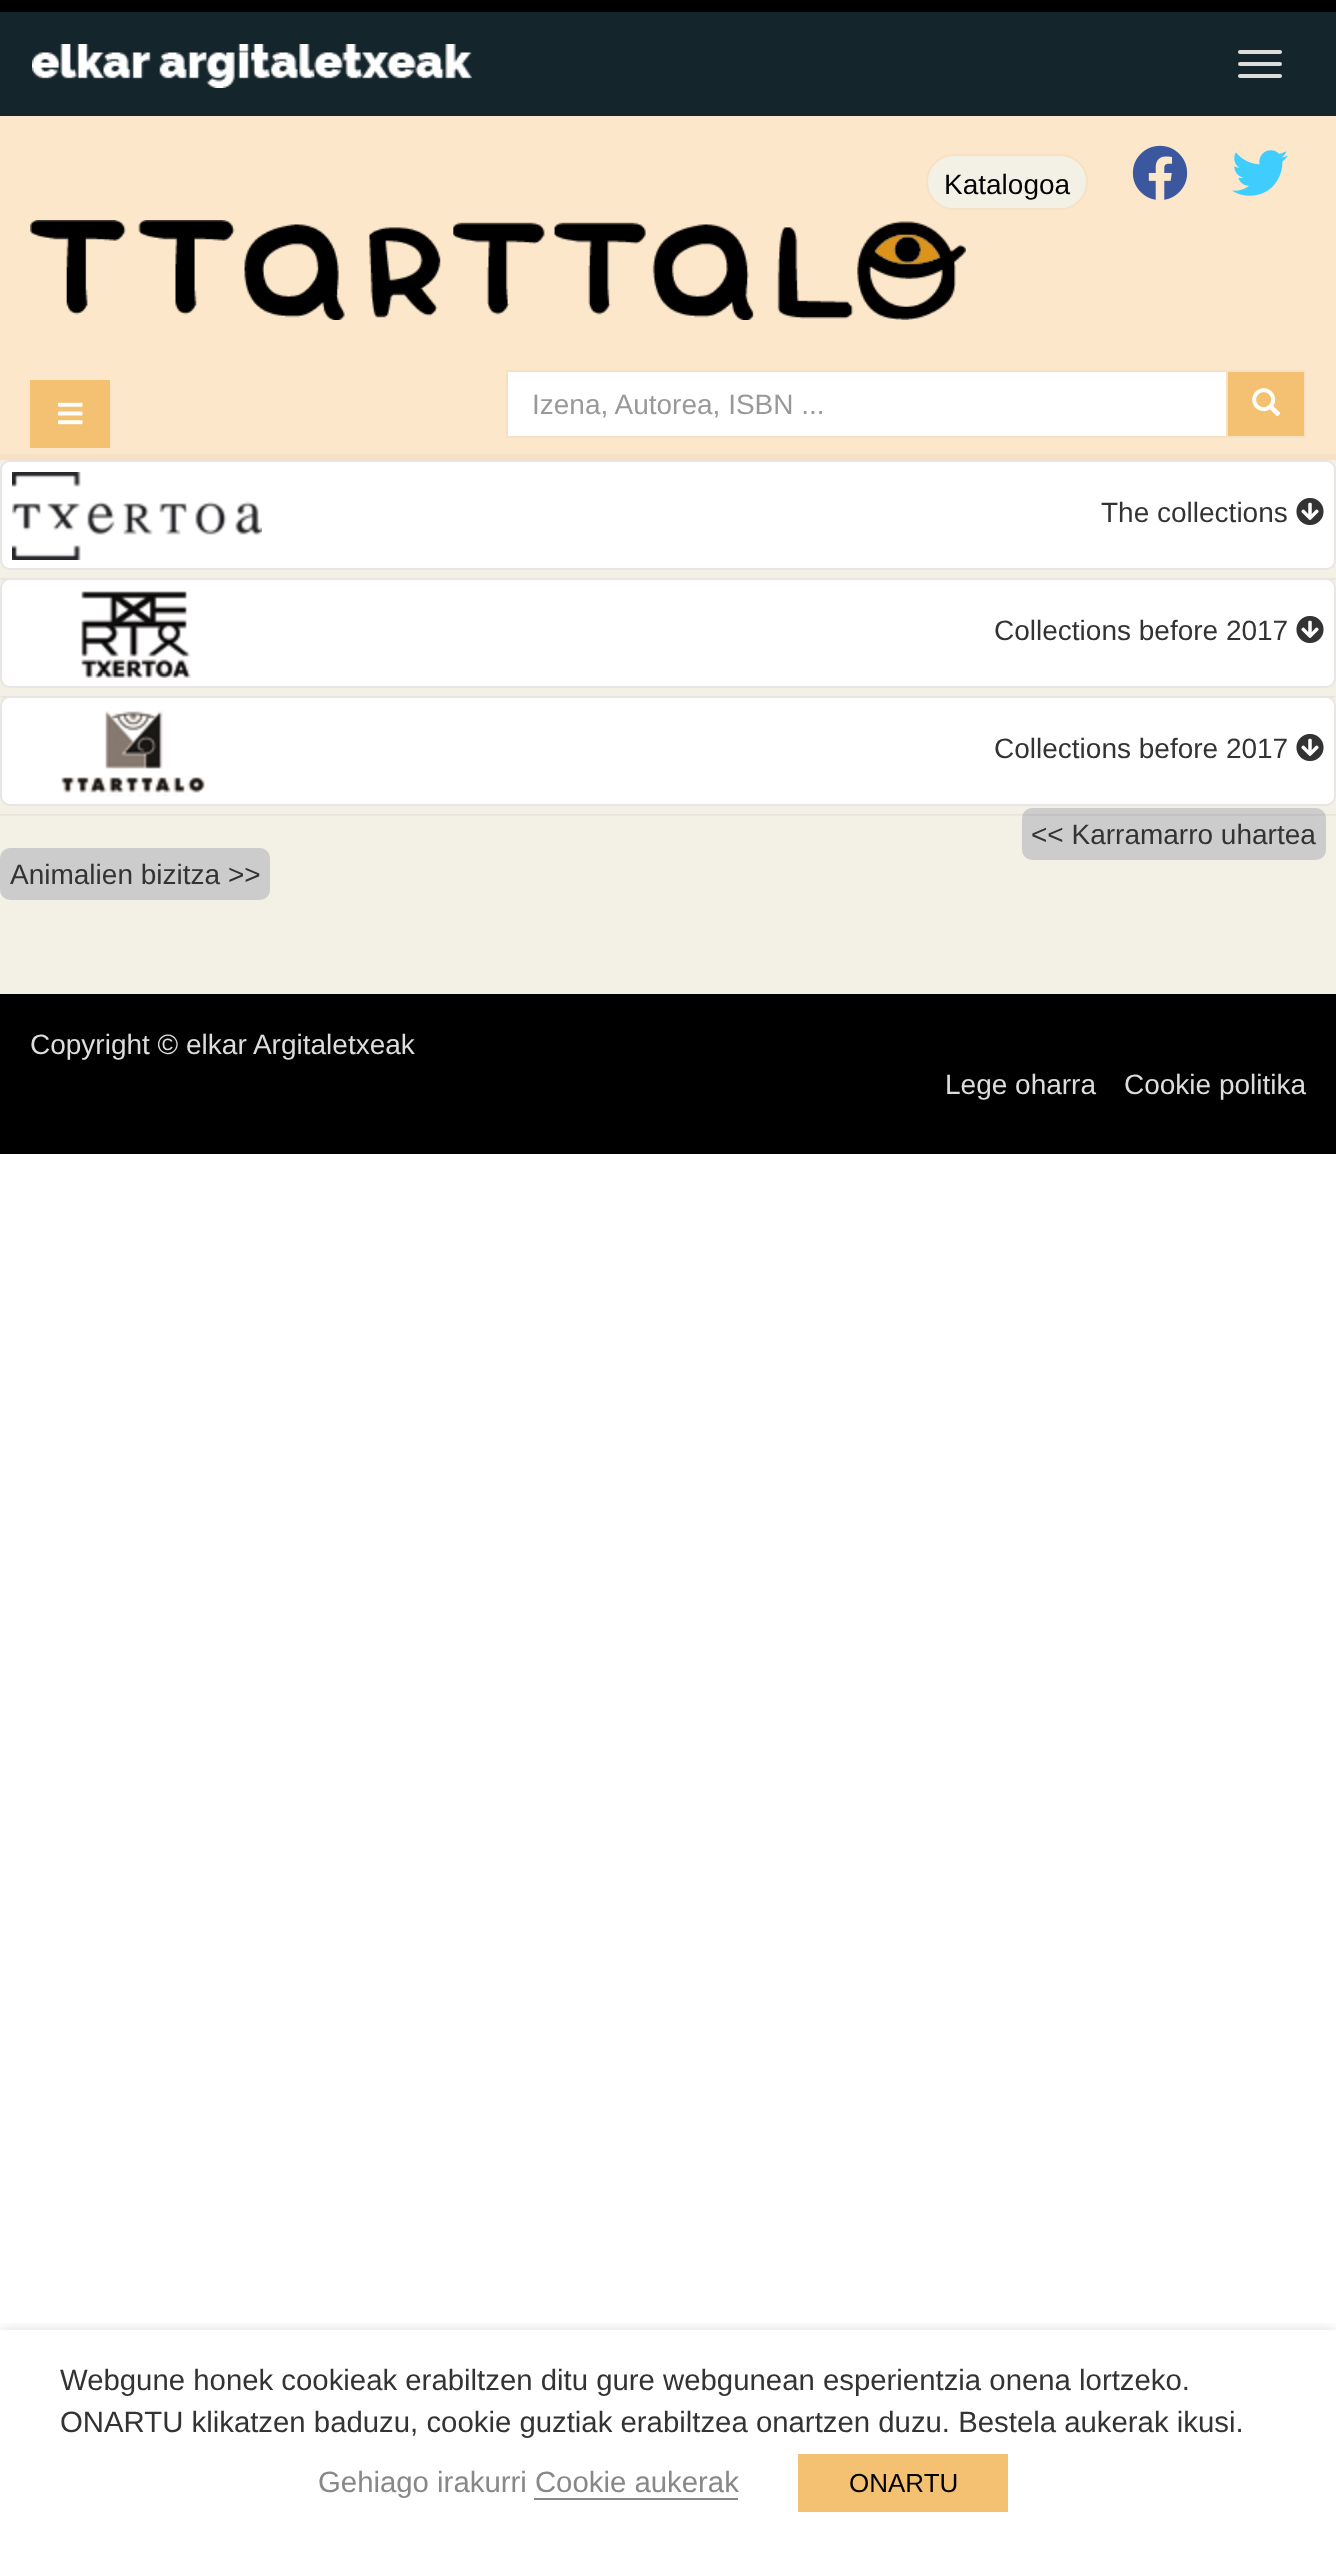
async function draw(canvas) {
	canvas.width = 1336;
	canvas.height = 2551;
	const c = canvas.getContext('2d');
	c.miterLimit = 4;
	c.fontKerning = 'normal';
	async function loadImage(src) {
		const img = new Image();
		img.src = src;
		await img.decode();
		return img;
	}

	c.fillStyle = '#fff';
	c.fillRect(0, 0, 1336, 2551);
	c.fillStyle = '#14252c';
	c.fillRect(0, 12, 1336, 104);
	c.fillStyle = '#000';
	c.fillRect(0, 0, 1336, 12);
	c.drawImage(await loadImage('img1.png'), 32, 44, 440, 44);
	c.fillStyle = '#ddd';
	c.beginPath();
	c.roundRect(1238, 50, 44, 4, 2);
	c.fill();
	c.beginPath();
	c.roundRect(1238, 62, 44, 4, 2);
	c.fill();
	c.beginPath();
	c.roundRect(1238, 74, 44, 4, 2);
	c.fill();
	c.fillStyle = '#fce7ca';
	c.fillRect(0, 116, 1336, 338);
	c.fillStyle = '#f4c172';
	c.fillRect(30, 380, 80, 68);
	c.drawImage(await loadImage('img2.png'), 58, 402, 25, 23);
	c.fillStyle = '#f3f1e5';
	c.beginPath();
	c.roundRect(927, 155, 160, 54, 27);
	c.fill();
	c.strokeStyle = '#f6e1c4';
	c.lineWidth = 2;
	c.stroke();
	c.font = '28px Liberation Sans';
	c.fillStyle = '#000';
	c.fillText('Katalogoa', 944, 194);
	c.drawImage(await loadImage('img3.png'), 1132, 145, 56, 55);
	c.drawImage(await loadImage('img4.png'), 1232, 150, 56, 46);
	c.drawImage(await loadImage('img5.png'), 30, 220, 936, 100);
	c.fillStyle = '#fff';
	c.beginPath();
	c.rect(507, 371, 720, 66);
	c.fill();
	c.stroke();
	c.fillStyle = '#999';
	c.fillText('Izena, Autorea, ISBN ...', 532, 414);
	c.fillStyle = '#f4c172';
	c.beginPath();
	c.rect(1227, 371, 78, 66);
	c.fill();
	c.stroke();
	c.drawImage(await loadImage('img6.png'), 1252, 388, 29, 29);
	c.fillStyle = '#f6e1c4';
	c.fillRect(0, 454, 1336, 6);
	c.fillStyle = '#f3f1e5';
	c.fillRect(0, 460, 1336, 534);
	c.save();
	c.beginPath();
	c.rect(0, 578, 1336, 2);
	c.clip();
	c.fillStyle = '#0000000d';
	c.filter = 'blur(1px)';
	c.beginPath();
	c.rect(0, 462, 1336, 118);
	c.fill();
	c.filter = 'none';
	c.restore();
	c.fillStyle = '#fff';
	c.beginPath();
	c.roundRect(1, 461, 1334, 108, 9);
	c.fill();
	c.strokeStyle = '#e9e5e5';
	c.stroke();
	c.drawImage(await loadImage('img7.png'), 12, 472, 250, 88);
	c.fillStyle = '#333';
	c.fillText('The collections', 1101, 522);
	c.drawImage(await loadImage('img8.png'), 1296, 498, 28, 27);
	c.save();
	c.beginPath();
	c.rect(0, 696, 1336, 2);
	c.clip();
	c.fillStyle = '#0000000d';
	c.filter = 'blur(1px)';
	c.beginPath();
	c.rect(0, 580, 1336, 118);
	c.fill();
	c.filter = 'none';
	c.restore();
	c.fillStyle = '#fff';
	c.beginPath();
	c.roundRect(1, 579, 1334, 108, 9);
	c.fill();
	c.stroke();
	c.drawImage(await loadImage('img9.png'), 81, 591, 110, 87);
	c.fillStyle = '#333';
	c.fillText('Collections before 2017', 994, 640);
	c.drawImage(await loadImage('img8.png'), 1296, 616, 28, 27);
	c.fillStyle = '#ccc';
	c.beginPath();
	c.roundRect(1022, 808, 50, 52, [10, 0, 0, 10]);
	c.fill();
	c.beginPath();
	c.roundRect(1072, 808, 254, 52, [0, 10, 10, 0]);
	c.fill();
	c.save();
	c.beginPath();
	c.rect(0, 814, 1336, 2);
	c.clip();
	c.fillStyle = '#0000000d';
	c.filter = 'blur(1px)';
	c.beginPath();
	c.rect(0, 698, 1336, 118);
	c.fill();
	c.filter = 'none';
	c.restore();
	c.fillStyle = '#fff';
	c.beginPath();
	c.roundRect(1, 697, 1334, 108, 9);
	c.fill();
	c.stroke();
	c.drawImage(await loadImage('img10.png'), 61, 711, 144, 85);
	c.fillStyle = '#333';
	c.fillText('Collections before 2017', 994, 758);
	c.drawImage(await loadImage('img8.png'), 1296, 734, 28, 27);
	c.fillText('<< Karramarro uhartea', 1031, 844);
	c.fillStyle = '#ccc';
	c.beginPath();
	c.roundRect(0, 848, 220, 52, [10, 0, 0, 10]);
	c.fill();
	c.beginPath();
	c.roundRect(220, 848, 50, 52, [0, 10, 10, 0]);
	c.fill();
	c.fillStyle = '#333';
	c.fillText('Animalien bizitza >>', 10, 884);
	c.fillStyle = '#000';
	c.fillRect(0, 994, 1336, 160);
	c.fillStyle = '#ddd';
	for (const [text, x, y] of [
		['Copyright © elkar Argitaletxeak', 30, 1054],
		['Lege oharra', 945, 1094],
		['Cookie politika', 1124, 1094],
	]) {
		c.fillText(text, x, y);
	}
	c.save();
	c.beginPath();
	c.rect(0, 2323, 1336, 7);
	c.clip();
	c.fillStyle = '#00000080';
	c.filter = 'blur(10px)';
	c.beginPath();
	c.rect(0, 2340, 1336, 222);
	c.fill();
	c.filter = 'none';
	c.restore();
	c.font = '29.35px Liberation Sans';
	c.fillStyle = '#333';
	c.fillText('Webgune honek cookieak erabiltzen ditu gure webgunean esperientzia onena lortzeko.', 60, 2390);
	c.fillText('ONARTU klikatzen baduzu, cookie guztiak erabiltzea onartzen duzu. Bestela aukerak ikusi.', 60, 2432);
	c.fillStyle = '#898888';
	c.fillText('Gehiago irakurri Cookie aukerak', 318, 2492);
	c.fillStyle = '#f4c172';
	c.fillRect(798, 2454, 210, 58);
	c.font = '26px Liberation Sans';
	c.fillStyle = '#000';
	c.fillText('ONARTU', 849, 2492);
	c.fillStyle = '#898888';
	c.fillRect(534, 2498, 204, 2);
}

draw(document.querySelector('canvas'));
